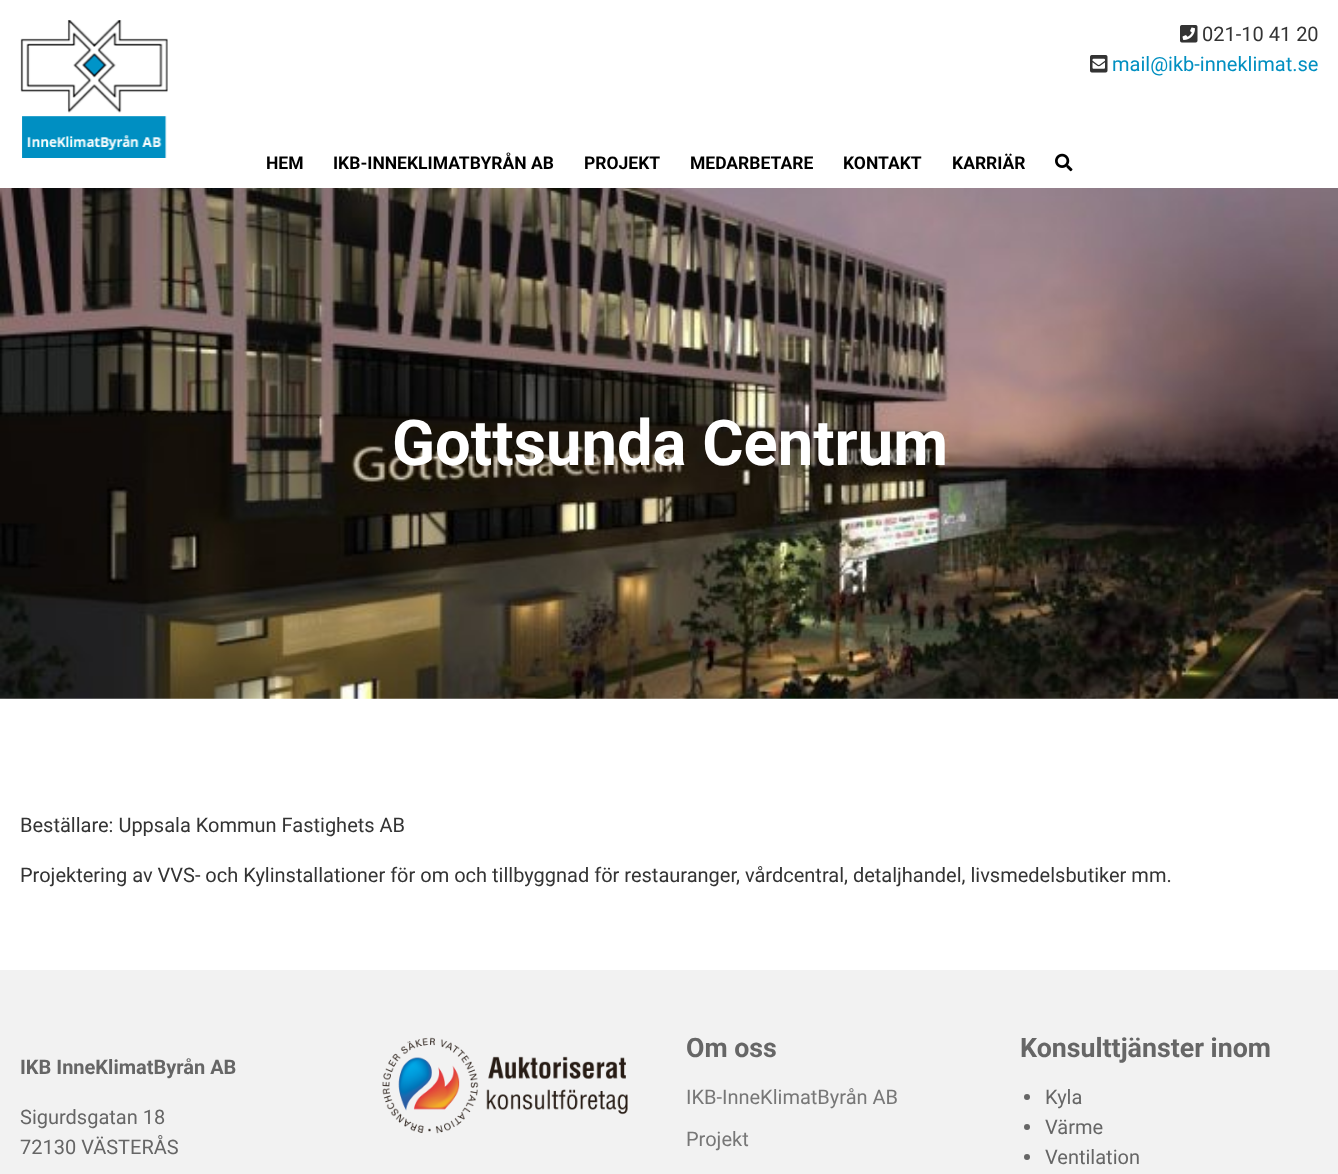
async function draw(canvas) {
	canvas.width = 1338;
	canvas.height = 1174;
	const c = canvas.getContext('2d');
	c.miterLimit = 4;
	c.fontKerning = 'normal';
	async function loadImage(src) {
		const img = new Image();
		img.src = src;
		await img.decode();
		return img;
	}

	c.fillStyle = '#fff';
	c.fillRect(0, 0, 1338, 1174);
	c.drawImage(await loadImage('img1.png'), 1180, 25, 18, 18);
	c.font = '20px Roboto';
	c.fillStyle = '#333';
	c.fillText('021-10 41 20', 1202, 41);
	c.drawImage(await loadImage('img2.png'), 1090, 55, 18, 18);
	c.fillStyle = '#008fc1';
	c.fillText('mail@ikb-inneklimat.se', 1112, 71);
	c.drawImage(await loadImage('img3.png'), 20, 20, 148, 138);
	c.font = 'bold 17.5px Roboto';
	c.fillStyle = '#000';
	for (const [text, x, y] of [
		['HEM', 266, 169],
		['IKB-INNEKLIMATBYRÅN AB', 333, 169],
		['PROJEKT', 584, 169],
		['MEDARBETARE', 690, 169],
		['KONTAKT', 843, 169],
		['KARRIÄR', 952, 169],
	]) {
		c.fillText(text, x, y);
	}
	c.drawImage(await loadImage('img4.png'), 1055, 153, 18, 19);
	c.drawImage(await loadImage('img5.png'), 0, 188, 1338, 511);
	c.font = 'bold 63.25px Roboto';
	c.fillStyle = '#fff';
	c.fillText('Gottsunda Centrum', 392, 465);
	c.font = '20px Roboto';
	c.fillStyle = '#333';
	c.fillText('Beställare: Uppsala Kommun Fastighets AB', 20, 832);
	c.fillText('Projektering av VVS- och Kylinstallationer för om och tillbyggnad för restauranger, vårdcentral, detaljhandel, livsmedelsbutiker mm.', 20, 882);
	c.fillStyle = '#f2f2f2';
	c.fillRect(0, 970, 1338, 204);
	c.font = 'bold 20px Roboto';
	c.fillStyle = '#666';
	c.fillText('IKB InneKlimatByrån AB', 20, 1074);
	c.font = '20px Roboto';
	c.fillText('Sigurdsgatan 18', 20, 1124);
	c.fillText('72130 VÄSTERÅS', 20, 1154);
	c.drawImage(await loadImage('img6.png'), 382, 1037, 246, 97);
	c.font = 'bold 26.75px Roboto';
	c.fillText('Om oss', 686, 1057);
	c.font = '20px Roboto';
	c.fillStyle = '#777';
	c.fillText('IKB-InneKlimatByrån AB', 686, 1104);
	c.fillText('Projekt', 686, 1146);
	c.font = 'bold 26.75px Roboto';
	c.fillStyle = '#666';
	c.fillText('Konsulttjänster inom', 1020, 1057);
	c.beginPath();
	c.arc(1027, 1097, 3, 0, 2 * Math.PI);
	c.fill();
	c.font = '20px Roboto';
	c.fillText('Kyla', 1045, 1104);
	c.beginPath();
	c.arc(1027, 1127, 3, 0, 2 * Math.PI);
	c.fill();
	c.fillText('Värme', 1045, 1134);
	c.beginPath();
	c.arc(1027, 1157, 3, 0, 2 * Math.PI);
	c.fill();
	c.fillText('Ventilation', 1045, 1164);
}

draw(document.querySelector('canvas'));
